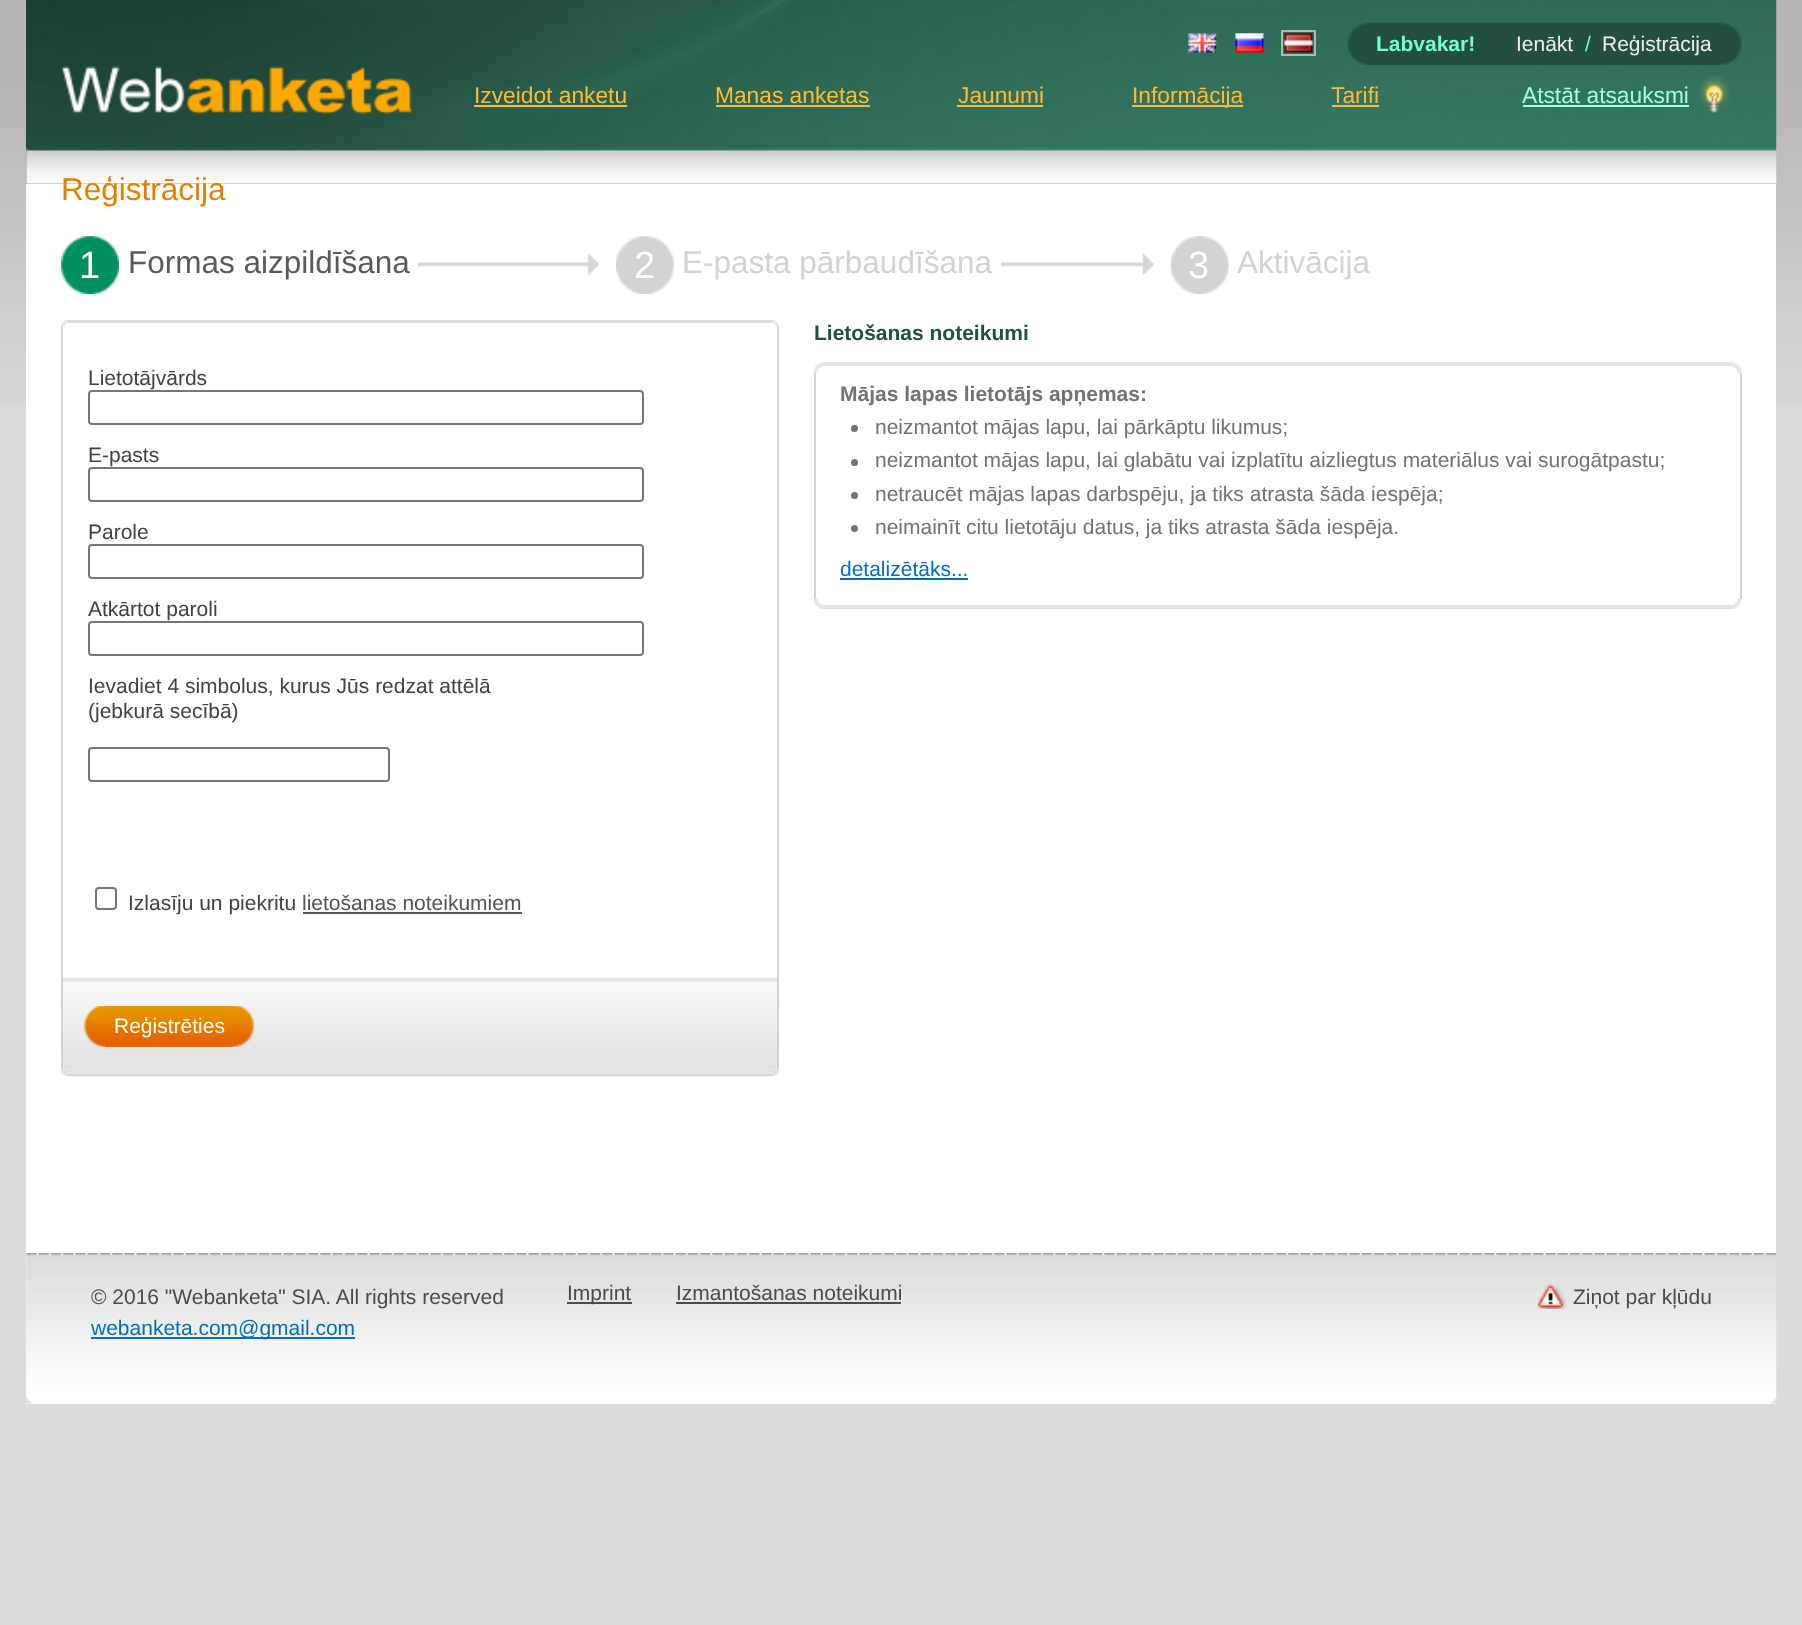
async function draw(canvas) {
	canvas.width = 1802;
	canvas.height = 1625;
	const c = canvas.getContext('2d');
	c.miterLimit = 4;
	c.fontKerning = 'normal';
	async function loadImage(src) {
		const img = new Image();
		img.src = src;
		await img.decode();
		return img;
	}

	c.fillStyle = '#dbdbdb';
	c.fillRect(0, 0, 1802, 1625);
	c.drawImage(await loadImage('img1.png'), 0, 0, 1802, 405);
	c.fillStyle = '#fff';
	c.fillRect(26, 184, 1750, 1220);
	c.fillStyle = '#295d4c';
	c.fillRect(26, 0, 1750, 184);
	c.drawImage(await loadImage('img2.png'), 26, 0, 1751, 184);
	c.drawImage(await loadImage('img3.png'), 1188, 33, 29, 20);
	c.drawImage(await loadImage('img4.png'), 1235, 33, 29, 20);
	c.strokeStyle = '#a3c0b6';
	c.lineWidth = 2;
	c.strokeRect(1282, 31, 33, 24);
	c.drawImage(await loadImage('img5.png'), 1284, 33, 29, 20);
	c.drawImage(await loadImage('img6.png'), 1347, 22, 24, 43);
	c.drawImage(await loadImage('img7.png'), 1718, 22, 24, 43);
	c.fillStyle = '#234f41';
	c.fillRect(1370, 23, 349, 42);
	c.drawImage(await loadImage('img8.png'), 1370, 22, 348, 1);
	c.font = 'bold 21px Liberation Sans';
	c.fillStyle = '#75fecf';
	c.fillText('Labvakar!', 1376, 51);
	c.font = '21px Liberation Sans';
	c.fillStyle = '#eee';
	c.fillText('Ienākt', 1516, 51);
	c.fillStyle = '#75fecf';
	c.fillText('/', 1585, 51);
	c.fillStyle = '#eee';
	c.fillText('Reģistrācija', 1602, 51);
	c.drawImage(await loadImage('img9.png'), 61, 66, 351, 48);
	c.font = '22.75px Liberation Sans';
	c.fillStyle = '#ffba36';
	c.fillText('Izveidot anketu', 474, 103);
	c.fillRect(474, 105, 153, 2);
	c.fillText('Manas anketas', 715, 103);
	c.fillRect(716, 105, 154, 2);
	c.fillText('Jaunumi', 958, 103);
	c.fillRect(957, 105, 86, 2);
	c.fillRect(1132, 105, 111, 2);
	c.fillText('Informācija', 1132, 103);
	c.fillText('Tarifi', 1331, 103);
	c.fillRect(1332, 105, 47, 2);
	c.drawImage(await loadImage('img10.png'), 1697, 75, 34, 38);
	c.fillStyle = '#a2ffe0';
	c.fillText('Atstāt atsauksmi', 1522, 103);
	c.fillRect(1523, 105, 166, 2);
	c.font = '31.5px Liberation Sans';
	c.fillStyle = '#e67f00';
	c.fillText('Reģistrācija', 61, 200);
	c.drawImage(await loadImage('img11.png'), 418, 253, 181, 22);
	c.drawImage(await loadImage('img12.png'), 61, 236, 58, 58);
	c.font = '38px Liberation Sans';
	c.fillStyle = '#fff';
	c.fillText('1', 79, 278);
	c.font = '31.5px Liberation Sans';
	c.fillStyle = '#595959';
	c.fillText('Formas aizpildīšana', 128, 273);
	c.drawImage(await loadImage('img13.png'), 1001, 253, 153, 22);
	c.drawImage(await loadImage('img14.png'), 616, 236, 58, 58);
	c.font = '38px Liberation Sans';
	c.fillStyle = '#fff';
	c.fillText('2', 634, 278);
	c.font = '31.5px Liberation Sans';
	c.fillStyle = '#d3d3d3';
	c.fillText('E-pasta pārbaudīšana', 682, 273);
	c.drawImage(await loadImage('img15.png'), 1170, 236, 59, 58);
	c.font = '38px Liberation Sans';
	c.fillStyle = '#fff';
	c.fillText('3', 1188, 278);
	c.font = '31.5px Liberation Sans';
	c.fillStyle = '#d3d3d3';
	c.fillText('Aktivācija', 1237, 273);
	c.drawImage(await loadImage('img16.png'), 61, 320, 8, 8);
	c.fillStyle = '#dbdbdb';
	c.fillRect(68, 320, 704, 3);
	c.drawImage(await loadImage('img17.png'), 771, 320, 8, 8);
	c.fillStyle = '#d3d3d3';
	c.fillRect(777, 327, 2, 651);
	c.fillRect(61, 327, 2, 651);
	c.font = '21px Liberation Sans';
	c.fillStyle = '#424242';
	c.fillText('Lietotājvārds', 88, 385);
	c.beginPath();
	c.roundRect(89, 391, 554, 33, 3);
	c.strokeStyle = '#767676';
	c.stroke();
	c.fillText('E-pasts', 88, 462);
	c.beginPath();
	c.roundRect(89, 468, 554, 33, 3);
	c.stroke();
	c.fillText('Parole', 88, 539);
	c.beginPath();
	c.roundRect(89, 545, 554, 33, 3);
	c.stroke();
	c.fillText('Atkārtot paroli', 88, 616);
	c.beginPath();
	c.roundRect(89, 622, 554, 33, 3);
	c.stroke();
	c.fillText('Ievadiet 4 simbolus, kurus Jūs redzat attēlā', 88, 693);
	c.fillText('(jebkurā secībā)', 88, 718);
	c.beginPath();
	c.roundRect(89, 748, 300, 33, 3);
	c.stroke();
	c.beginPath();
	c.roundRect(96, 888, 20, 21, 3);
	c.stroke();
	c.fillText('Izlasīju un piekritu', 128, 910);
	c.fillStyle = '#535353';
	c.fillText('lietošanas noteikumiem', 302, 910);
	c.fillRect(303, 912, 219, 2);
	c.fillStyle = '#e4e4e4';
	c.fillRect(63, 978, 714, 3);
	c.drawImage(await loadImage('img18.png'), 61, 981, 718, 89);
	c.fillStyle = '#d3d3d3';
	c.fillRect(777, 978, 2, 91);
	c.fillRect(61, 978, 2, 91);
	c.drawImage(await loadImage('img19.png'), 84, 1006, 21, 41);
	c.drawImage(await loadImage('img20.png'), 233, 1006, 21, 41);
	c.fillStyle = '#e68200';
	c.fillRect(105, 1006, 128, 41);
	c.drawImage(await loadImage('img21.png'), 105, 1006, 128, 41);
	c.fillStyle = '#fff';
	c.fillText('Reģistrēties', 114, 1033);
	c.drawImage(await loadImage('img22.png'), 61, 1069, 8, 8);
	c.drawImage(await loadImage('img23.png'), 68, 1069, 704, 8);
	c.drawImage(await loadImage('img24.png'), 772, 1069, 7, 8);
	c.font = 'bold 21px Liberation Sans';
	c.fillStyle = '#234f41';
	c.fillText('Lietošanas noteikumi', 814, 340);
	c.drawImage(await loadImage('img25.png'), 813, 362, 12, 11);
	c.fillStyle = '#e2e2e2';
	c.fillRect(824, 362, 907, 4);
	c.drawImage(await loadImage('img26.png'), 1731, 362, 11, 11);
	c.fillStyle = '#d3d3d3';
	c.fillRect(1740, 373, 2, 226);
	c.fillRect(814, 373, 2, 226);
	c.fillStyle = '#727272';
	c.fillText('Mājas lapas lietotājs apņemas:', 840, 401);
	c.beginPath();
	c.arc(854.5, 428.5, 3.5, 0, 2 * Math.PI);
	c.fill();
	c.font = '21px Liberation Sans';
	c.fillText('neizmantot mājas lapu, lai pārkāptu likumus;', 875, 434);
	c.beginPath();
	c.arc(854.5, 462.5, 3.5, 0, 2 * Math.PI);
	c.fill();
	c.fillText('neizmantot mājas lapu, lai glabātu vai izplatītu aizliegtus materiālus vai surogātpastu;', 875, 467);
	c.beginPath();
	c.arc(854.5, 495.5, 3.5, 0, 2 * Math.PI);
	c.fill();
	c.fillText('netraucēt mājas lapas darbspēju, ja tiks atrasta šāda iespēja;', 875, 501);
	c.beginPath();
	c.arc(854.5, 528.5, 3.5, 0, 2 * Math.PI);
	c.fill();
	c.fillText('neimainīt citu lietotāju datus, ja tiks atrasta šāda iespēja.', 875, 534);
	c.fillStyle = '#006fb5';
	c.fillText('detalizētāks...', 840, 576);
	c.fillRect(840, 578, 128, 2);
	c.drawImage(await loadImage('img27.png'), 813, 598, 12, 11);
	c.fillStyle = '#e2e2e2';
	c.fillRect(824, 605, 907, 4);
	c.drawImage(await loadImage('img28.png'), 1731, 598, 11, 11);
	c.drawImage(await loadImage('img29.png'), 26, 1253, 1751, 142);
	c.fillStyle = '#4b4b4b';
	c.fillText('© 2016 "Webanketa" SIA. All rights reserved', 91, 1304);
	c.fillStyle = '#006fb5';
	c.fillRect(91, 1337, 264, 2);
	c.fillText('webanketa.com@gmail.com', 91, 1335);
	c.fillStyle = '#4b4b4b';
	c.fillRect(567, 1302, 65, 2);
	c.fillText('Imprint', 567, 1300);
	c.fillText('Izmantošanas noteikumi', 676, 1300);
	c.fillRect(676, 1302, 225, 2);
	c.drawImage(await loadImage('img30.png'), 1537, 1284, 30, 25);
	c.fillText('Ziņot par kļūdu', 1573, 1304);
	c.drawImage(await loadImage('img31.png'), 26, 1396, 8, 8);
	c.drawImage(await loadImage('img32.png'), 1769, 1395, 8, 9);
}

draw(document.querySelector('canvas'));
